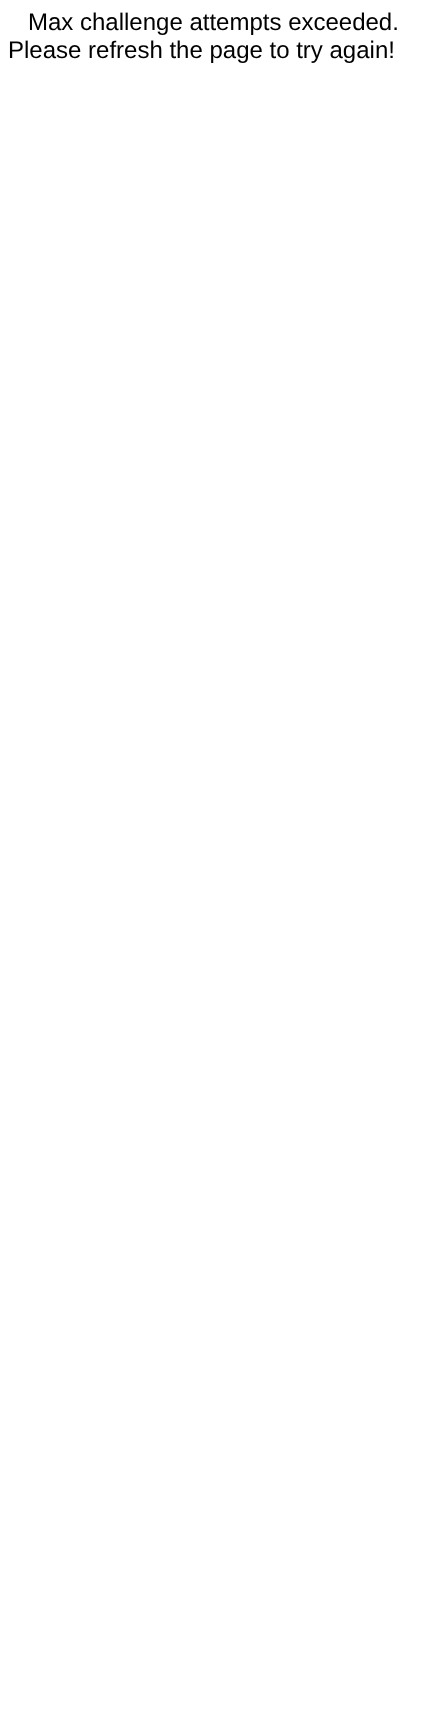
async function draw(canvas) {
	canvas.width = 436;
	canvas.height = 1717;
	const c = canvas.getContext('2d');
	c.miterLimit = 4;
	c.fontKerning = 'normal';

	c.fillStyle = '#fff';
	c.fillRect(0, 0, 436, 1717);
	c.font = '24px Liberation Sans';
	c.fillStyle = '#000';
	c.fillText('Max challenge attempts exceeded.', 28, 30);
	c.fillText('Please refresh the page to try again!', 8, 58);
}

draw(document.querySelector('canvas'));
